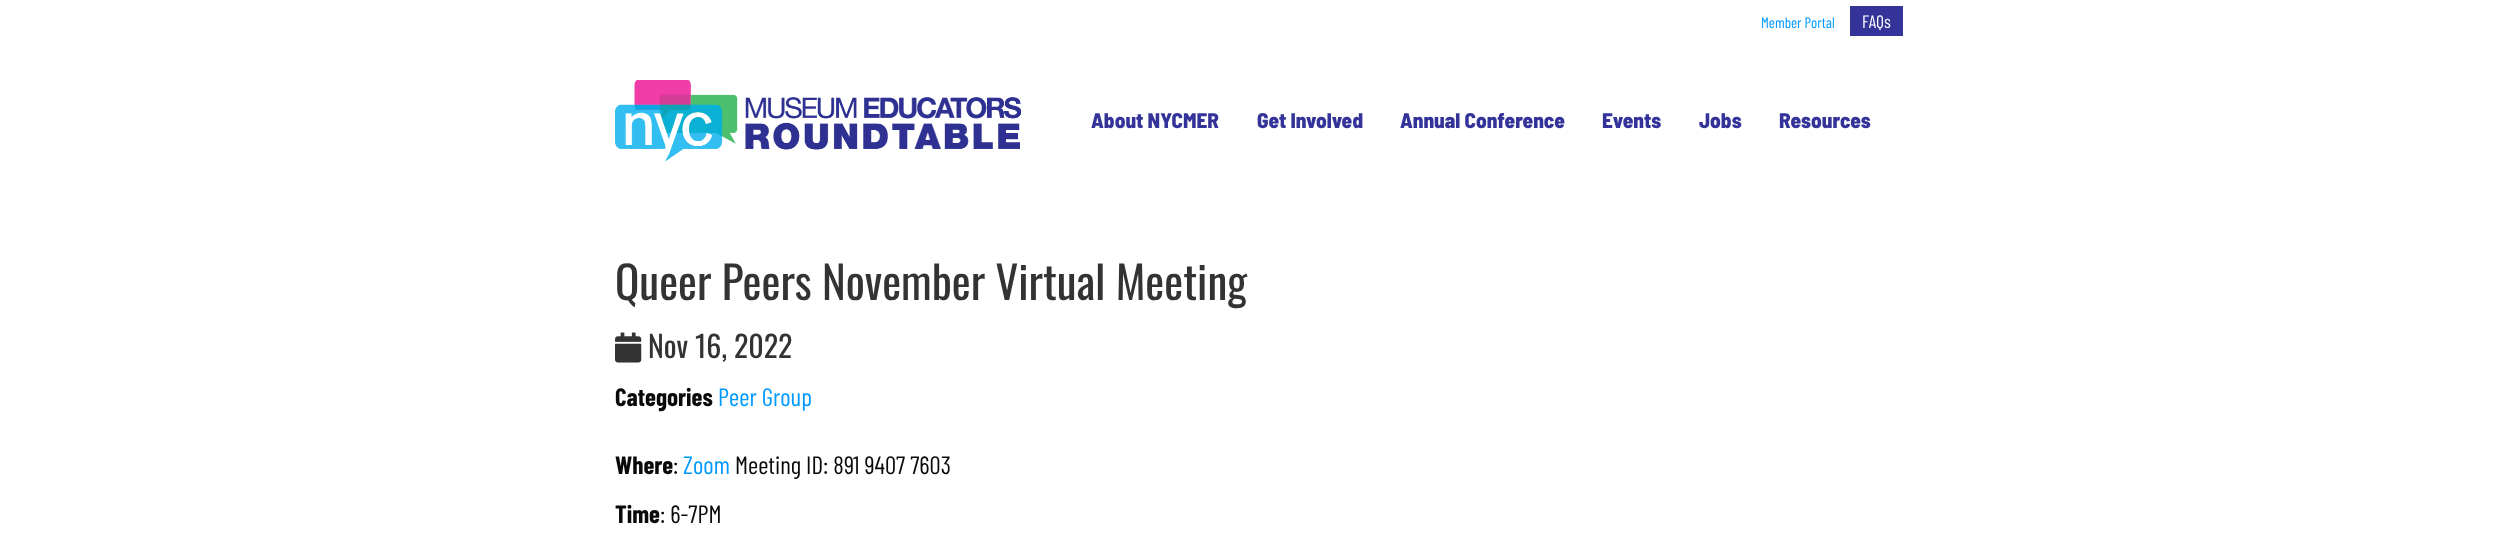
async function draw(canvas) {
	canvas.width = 2504;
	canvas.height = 560;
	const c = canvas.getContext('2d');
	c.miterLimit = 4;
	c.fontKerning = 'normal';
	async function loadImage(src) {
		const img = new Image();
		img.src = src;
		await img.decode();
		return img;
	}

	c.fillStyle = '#fff';
	c.fillRect(0, 0, 2504, 560);
	c.font = '15px Barlow Condensed';
	c.fillStyle = '#09f';
	c.fillText('Member Portal', 1761, 28);
	c.fillStyle = '#339';
	c.fillRect(1850, 6, 53, 30);
	c.font = '18px Barlow Condensed';
	c.fillStyle = '#fff';
	c.fillText('FAQs', 1862, 28);
	c.drawImage(await loadImage('img1.png'), 615, 80, 406, 82);
	c.font = '800 21.25px Barlow Semi Condensed';
	c.fillStyle = '#339';
	for (const [text, x, y] of [
		['About NYCMER', 1091, 128],
		['Get Involved', 1257, 128],
		['Annual Conference', 1400, 128],
		['Events', 1602, 128],
		['Jobs', 1699, 128],
		['Resources', 1779, 128],
	]) {
		c.fillText(text, x, y);
	}
	c.font = '45px Oswald';
	c.fillStyle = '#333';
	c.fillText('Queer Peers November Virtual Meeting', 615, 300);
	c.drawImage(await loadImage('img2.png'), 615, 332, 27, 31);
	c.font = '30px Oswald';
	c.fillText('Nov 16, 2022', 648, 358);
	c.font = 'bold 25px Barlow Condensed';
	c.fillStyle = '#0a0a0a';
	c.fillText('Categories', 615, 406);
	c.font = '25px Barlow Condensed';
	c.fillStyle = '#09f';
	c.fillText('Peer Group', 718, 406);
	c.font = 'bold 25px Barlow Condensed';
	c.fillStyle = '#0a0a0a';
	c.fillText('Where', 615, 474);
	c.font = '25px Barlow Condensed';
	c.fillText(':', 673, 474);
	c.fillStyle = '#09f';
	c.fillText('Zoom', 683, 474);
	c.fillStyle = '#0a0a0a';
	c.fillText('Meeting ID: 891 9407 7603', 735, 474);
	c.font = 'bold 25px Barlow Condensed';
	c.fillText('Time', 615, 523);
	c.font = '25px Barlow Condensed';
	c.fillText(': 6-7PM', 660, 523);
}

draw(document.querySelector('canvas'));
